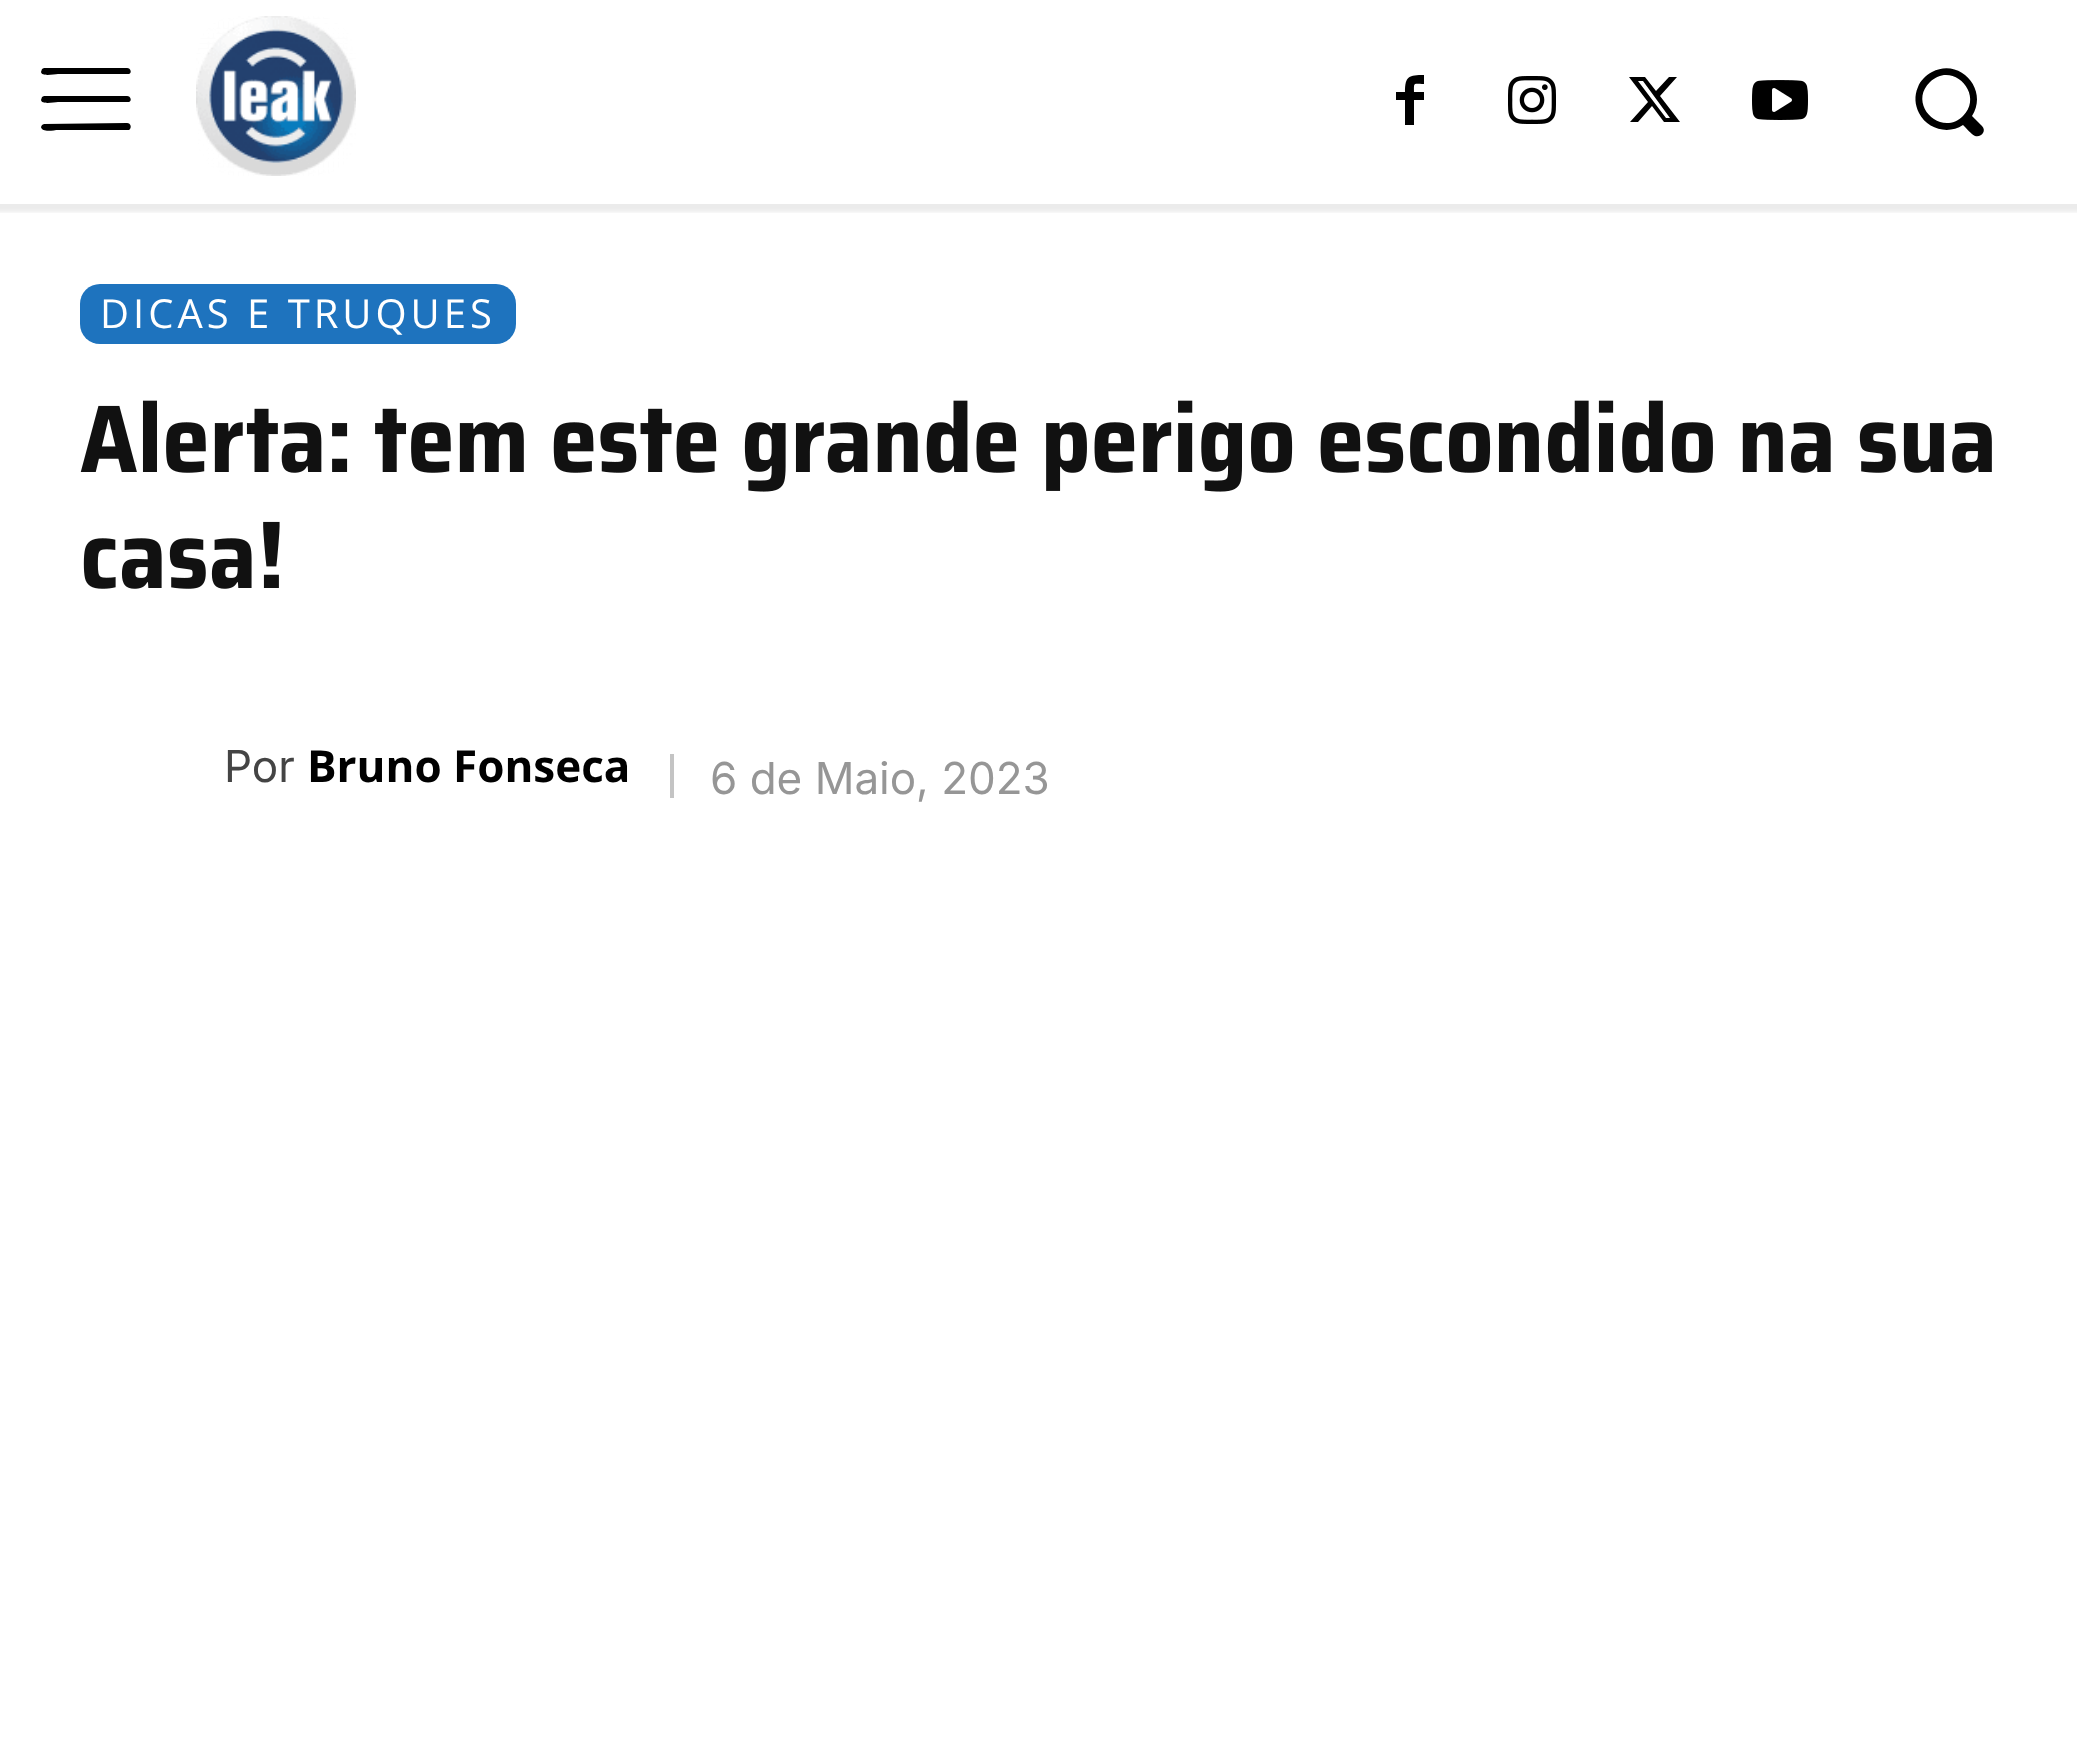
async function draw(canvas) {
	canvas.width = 2077;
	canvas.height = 1761;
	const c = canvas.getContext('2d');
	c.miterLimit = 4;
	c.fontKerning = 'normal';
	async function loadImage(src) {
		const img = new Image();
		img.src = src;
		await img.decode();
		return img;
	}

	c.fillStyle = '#fff';
	c.fillRect(0, 0, 2077, 1761);
	c.fillStyle = '#000';
	c.beginPath();
	c.moveTo(127, 96);
	c.lineTo(44, 96);
	c.lineTo(42, 97);
	c.lineTo(41, 100);
	c.bezierCurveTo(42, 105, 54, 102, 58, 102);
	c.lineTo(129, 102);
	c.bezierCurveTo(132, 101, 131, 96, 127, 96);
	c.closePath();
	c.moveTo(127, 68);
	c.lineTo(44, 68);
	c.lineTo(42, 69);
	c.lineTo(41, 72);
	c.bezierCurveTo(42, 77, 54, 74, 58, 74);
	c.lineTo(129, 74);
	c.bezierCurveTo(132, 73, 131, 68, 127, 68);
	c.closePath();
	c.moveTo(127, 123);
	c.lineTo(44, 124);
	c.lineTo(42, 125);
	c.lineTo(41, 127);
	c.bezierCurveTo(42, 133, 54, 130, 58, 130);
	c.lineTo(129, 130);
	c.bezierCurveTo(132, 128, 131, 123, 127, 123);
	c.closePath();
	c.fill();
	c.drawImage(await loadImage('img1.png'), 196, 16, 160, 160);
	c.beginPath();
	c.moveTo(1424, 84);
	c.bezierCurveTo(1413, 84, 1414, 82, 1414, 92);
	c.lineTo(1424, 92);
	c.lineTo(1424, 100);
	c.lineTo(1414, 100);
	c.lineTo(1414, 125);
	c.lineTo(1405, 125);
	c.lineTo(1405, 100);
	c.lineTo(1396, 100);
	c.lineTo(1396, 92);
	c.lineTo(1405, 92);
	c.bezierCurveTo(1405, 76, 1409, 75, 1424, 75);
	c.closePath();
	c.fill();
	c.drawImage(await loadImage('img2.png'), 1508, 76, 48, 48);
	c.beginPath();
	c.moveTo(1669, 77);
	c.lineTo(1677, 77);
	c.lineTo(1660, 96);
	c.lineTo(1680, 122);
	c.lineTo(1664, 122);
	c.lineTo(1652, 106);
	c.lineTo(1638, 122);
	c.lineTo(1630, 122);
	c.lineTo(1648, 102);
	c.lineTo(1629, 77);
	c.lineTo(1645, 77);
	c.lineTo(1656, 91);
	c.closePath();
	c.moveTo(1666, 118);
	c.lineTo(1670, 118);
	c.lineTo(1643, 81);
	c.lineTo(1638, 81);
	c.closePath();
	c.fill();
	c.drawImage(await loadImage('img3.png'), 1752, 80, 56, 40);
	c.beginPath();
	c.moveTo(1982, 126);
	c.lineTo(1972, 116);
	c.bezierCurveTo(1989, 90, 1960, 57, 1932, 72);
	c.bezierCurveTo(1926, 75, 1920, 81, 1918, 87);
	c.bezierCurveTo(1914, 96, 1915, 105, 1919, 113);
	c.bezierCurveTo(1927, 129, 1948, 135, 1963, 125);
	c.bezierCurveTo(1966, 128, 1972, 135, 1975, 136);
	c.bezierCurveTo(1981, 138, 1987, 131, 1982, 126);
	c.closePath();
	c.moveTo(1963, 116);
	c.bezierCurveTo(1941, 138, 1907, 104, 1930, 82);
	c.bezierCurveTo(1952, 60, 1985, 94, 1963, 116);
	c.closePath();
	c.fill();
	c.save();
	c.beginPath();
	c.rect(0, 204, 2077, 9);
	c.clip();
	c.fillStyle = '#00000014';
	c.filter = 'blur(2px)';
	c.beginPath();
	c.rect(-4, 0, 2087, 212);
	c.fill();
	c.filter = 'none';
	c.restore();
	c.fillStyle = '#1e73be';
	c.beginPath();
	c.roundRect(80, 284, 436, 60, 20);
	c.fill();
	c.letterSpacing = '4px';
	c.font = '40px Open Sans';
	c.fillStyle = '#fff';
	c.fillText('DICAS E TRUQUES', 100, 328);
	c.drawImage(await loadImage('img4.png'), 80, 400, 1912, 92);
	c.drawImage(await loadImage('img5.png'), 83, 521, 197, 68);
	c.letterSpacing = '0px';
	c.font = '44px Inter';
	c.fillStyle = '#444';
	c.fillText('Por', 224, 782);
	c.font = 'bold 44px Open Sans';
	c.fillStyle = '#000';
	c.fillText('Bruno Fonseca', 307, 782);
	c.fillStyle = '#c4c4c4';
	c.fillRect(670, 754, 4, 44);
	c.font = '44px Inter';
	c.fillStyle = '#969696';
	c.fillText('6 de Maio, 2023', 710, 794);
}

draw(document.querySelector('canvas'));
